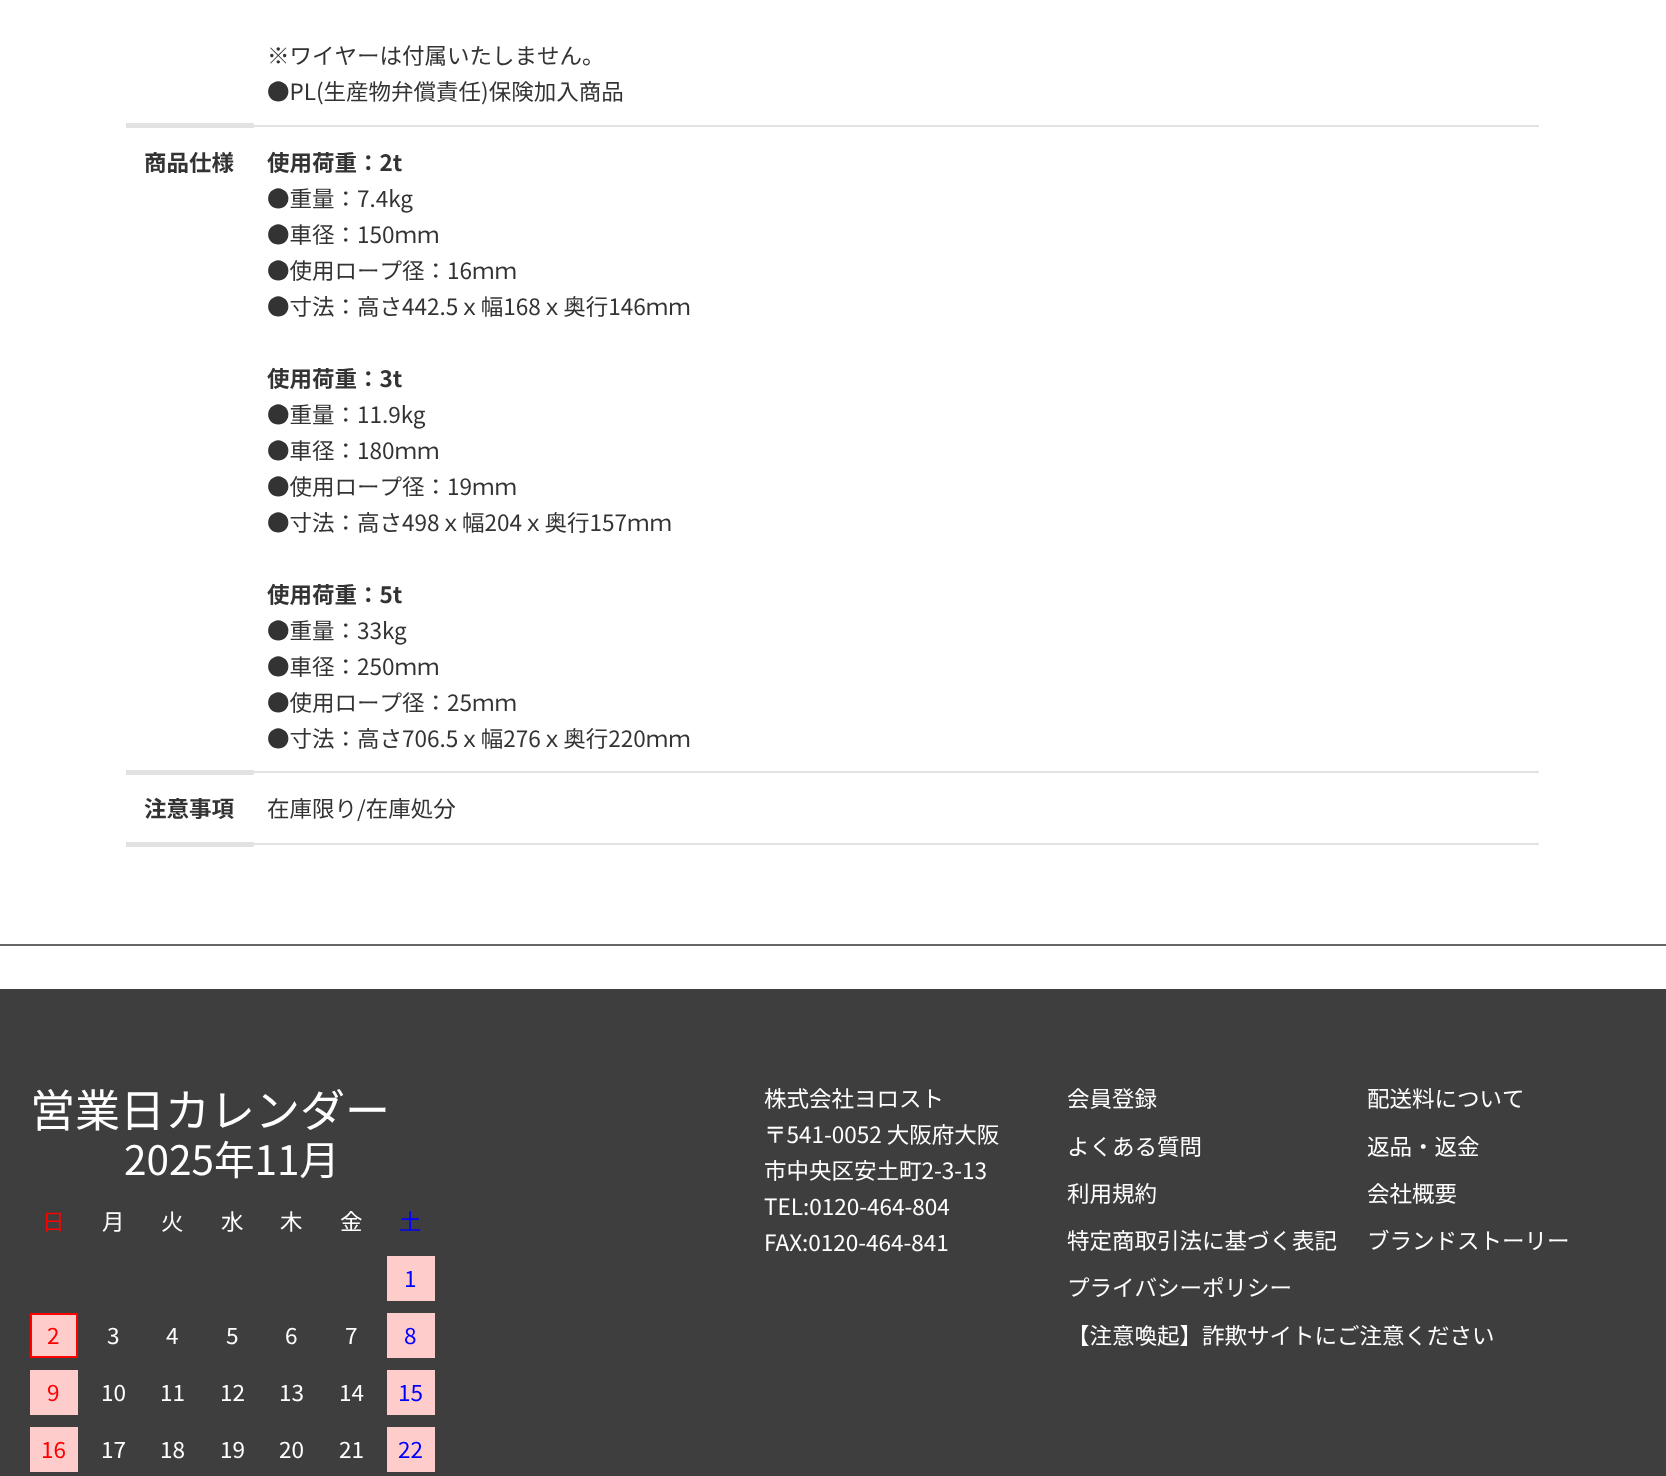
async function draw(canvas) {
	canvas.width = 1666;
	canvas.height = 1476;
	const c = canvas.getContext('2d');
	c.miterLimit = 4;
	c.fontKerning = 'normal';

	c.fillStyle = '#fff';
	c.fillRect(0, 0, 1666, 1476);
	c.font = '22.5px Noto Sans JP';
	c.fillStyle = '#333';
	c.fillText('※ワイヤーは付属いたしません。', 267, 64);
	c.fillText('●PL(生産物弁償責任)保険加入商品', 267, 100);
	for (const [x, y, w, h, color] of [
		[251, 125, 1288, 2, '#e2e2e2'],
		[126, 123, 128, 5, '#e2e2e2'],
		[251, 771, 1288, 2, '#e2e2e2'],
		[126, 770, 128, 5, '#e2e2e2'],
	]) {
		c.fillStyle = color;
		c.fillRect(x, y, w, h);
	}
	c.font = 'bold 22.5px Noto Sans JP';
	c.fillStyle = '#333';
	c.fillText('商品仕様', 144, 171);
	c.fillText('使用荷重：2t', 267, 171);
	c.font = '22.5px Noto Sans JP';
	for (const [text, x, y] of [
		['●重量：7.4kg', 267, 207],
		['●車径：150ｍｍ', 267, 243],
		['●使用ロープ径：16ｍｍ', 267, 279],
		['●寸法：高さ442.5ｘ幅168ｘ奥行146ｍｍ', 267, 315],
	]) {
		c.fillText(text, x, y);
	}
	c.font = 'bold 22.5px Noto Sans JP';
	c.fillText('使用荷重：3t', 267, 387);
	c.font = '22.5px Noto Sans JP';
	for (const [text, x, y] of [
		['●重量：11.9kg', 267, 423],
		['●車径：180ｍｍ', 267, 459],
		['●使用ロープ径：19ｍｍ', 267, 495],
		['●寸法：高さ498ｘ幅204ｘ奥行157ｍｍ', 267, 531],
	]) {
		c.fillText(text, x, y);
	}
	c.font = 'bold 22.5px Noto Sans JP';
	c.fillText('使用荷重：5t', 267, 603);
	c.font = '22.5px Noto Sans JP';
	for (const [text, x, y] of [
		['●重量：33kg', 267, 639],
		['●車径：250ｍｍ', 267, 675],
		['●使用ロープ径：25ｍｍ', 267, 711],
		['●寸法：高さ706.5ｘ幅276ｘ奥行220ｍｍ', 267, 747],
	]) {
		c.fillText(text, x, y);
	}
	c.fillStyle = '#e2e2e2';
	c.fillRect(251, 843, 1288, 2);
	c.fillRect(126, 842, 128, 5);
	c.font = 'bold 22.5px Noto Sans JP';
	c.fillStyle = '#333';
	c.fillText('注意事項', 144, 817);
	c.font = '22.5px Noto Sans JP';
	c.fillText('在庫限り/在庫処分', 267, 817);
	c.fillStyle = '#666';
	c.fillRect(0, 944, 1666, 2);
	c.fillStyle = '#3e3e3e';
	c.fillRect(0, 989, 1666, 487);
	c.font = '45px Noto Sans JP';
	c.fillStyle = '#fff';
	c.fillText('営業日カレンダー', 30, 1127);
	c.font = '40.5px Noto Sans JP';
	c.fillText('2025年11月', 124, 1175);
	c.font = '22.5px Noto Sans JP';
	c.fillStyle = '#f00';
	c.fillText('日', 42, 1230);
	c.fillStyle = '#fff';
	for (const [text, x, y] of [
		['月', 102, 1230],
		['火', 161, 1230],
		['水', 221, 1230],
		['木', 280, 1230],
		['金', 340, 1230],
	]) {
		c.fillText(text, x, y);
	}
	c.fillStyle = '#00f';
	c.fillText('土', 399, 1230);
	c.fillStyle = '#fcc';
	c.fillRect(387, 1256, 48, 45);
	c.fillStyle = '#00f';
	c.fillText('1', 404, 1287);
	c.fillStyle = '#fcc';
	c.beginPath();
	c.rect(31, 1314, 46, 43);
	c.fill();
	c.strokeStyle = '#f00';
	c.lineWidth = 2;
	c.stroke();
	c.fillStyle = '#f00';
	c.fillText('2', 47, 1344);
	c.fillStyle = '#fff';
	for (const [text, x, y] of [
		['3', 107, 1344],
		['4', 166, 1344],
		['5', 226, 1344],
		['6', 285, 1344],
		['7', 345, 1344],
	]) {
		c.fillText(text, x, y);
	}
	c.fillStyle = '#fcc';
	c.fillRect(387, 1313, 48, 45);
	c.fillStyle = '#00f';
	c.fillText('8', 404, 1344);
	c.fillStyle = '#fcc';
	c.fillRect(30, 1370, 48, 45);
	c.fillStyle = '#f00';
	c.fillText('9', 47, 1401);
	c.fillStyle = '#fff';
	for (const [text, x, y] of [
		['10', 101, 1401],
		['11', 160, 1401],
		['12', 220, 1401],
		['13', 279, 1401],
		['14', 339, 1401],
	]) {
		c.fillText(text, x, y);
	}
	c.fillStyle = '#fcc';
	c.fillRect(387, 1370, 48, 45);
	c.fillStyle = '#00f';
	c.fillText('15', 398, 1401);
	c.fillStyle = '#fcc';
	c.fillRect(30, 1427, 48, 45);
	c.fillStyle = '#f00';
	c.fillText('16', 41, 1458);
	c.fillStyle = '#fff';
	for (const [text, x, y] of [
		['17', 101, 1458],
		['18', 160, 1458],
		['19', 220, 1458],
		['20', 279, 1458],
		['21', 339, 1458],
	]) {
		c.fillText(text, x, y);
	}
	c.fillStyle = '#fcc';
	c.fillRect(387, 1427, 48, 45);
	c.fillStyle = '#00f';
	c.fillText('22', 398, 1458);
	c.fillStyle = '#fff';
	for (const [text, x, y] of [
		['株式会社ヨロスト', 764, 1107],
		['〒541-0052 大阪府大阪', 764, 1143],
		['市中央区安土町2-3-13', 764, 1179],
		['TEL:0120-464-804', 764, 1215],
		['FAX:0120-464-841', 764, 1251],
		['会員登録', 1067, 1107],
		['よくある質問', 1067, 1155],
		['利用規約', 1067, 1202],
		['特定商取引法に基づく表記', 1067, 1249],
		['プライバシーポリシー', 1067, 1296],
		['【注意喚起】詐欺サイトにご注意ください', 1067, 1344],
		['配送料について', 1367, 1107],
		['返品・返金', 1367, 1155],
		['会社概要', 1367, 1202],
		['ブランドストーリー', 1367, 1249],
	]) {
		c.fillText(text, x, y);
	}
}

draw(document.querySelector('canvas'));
